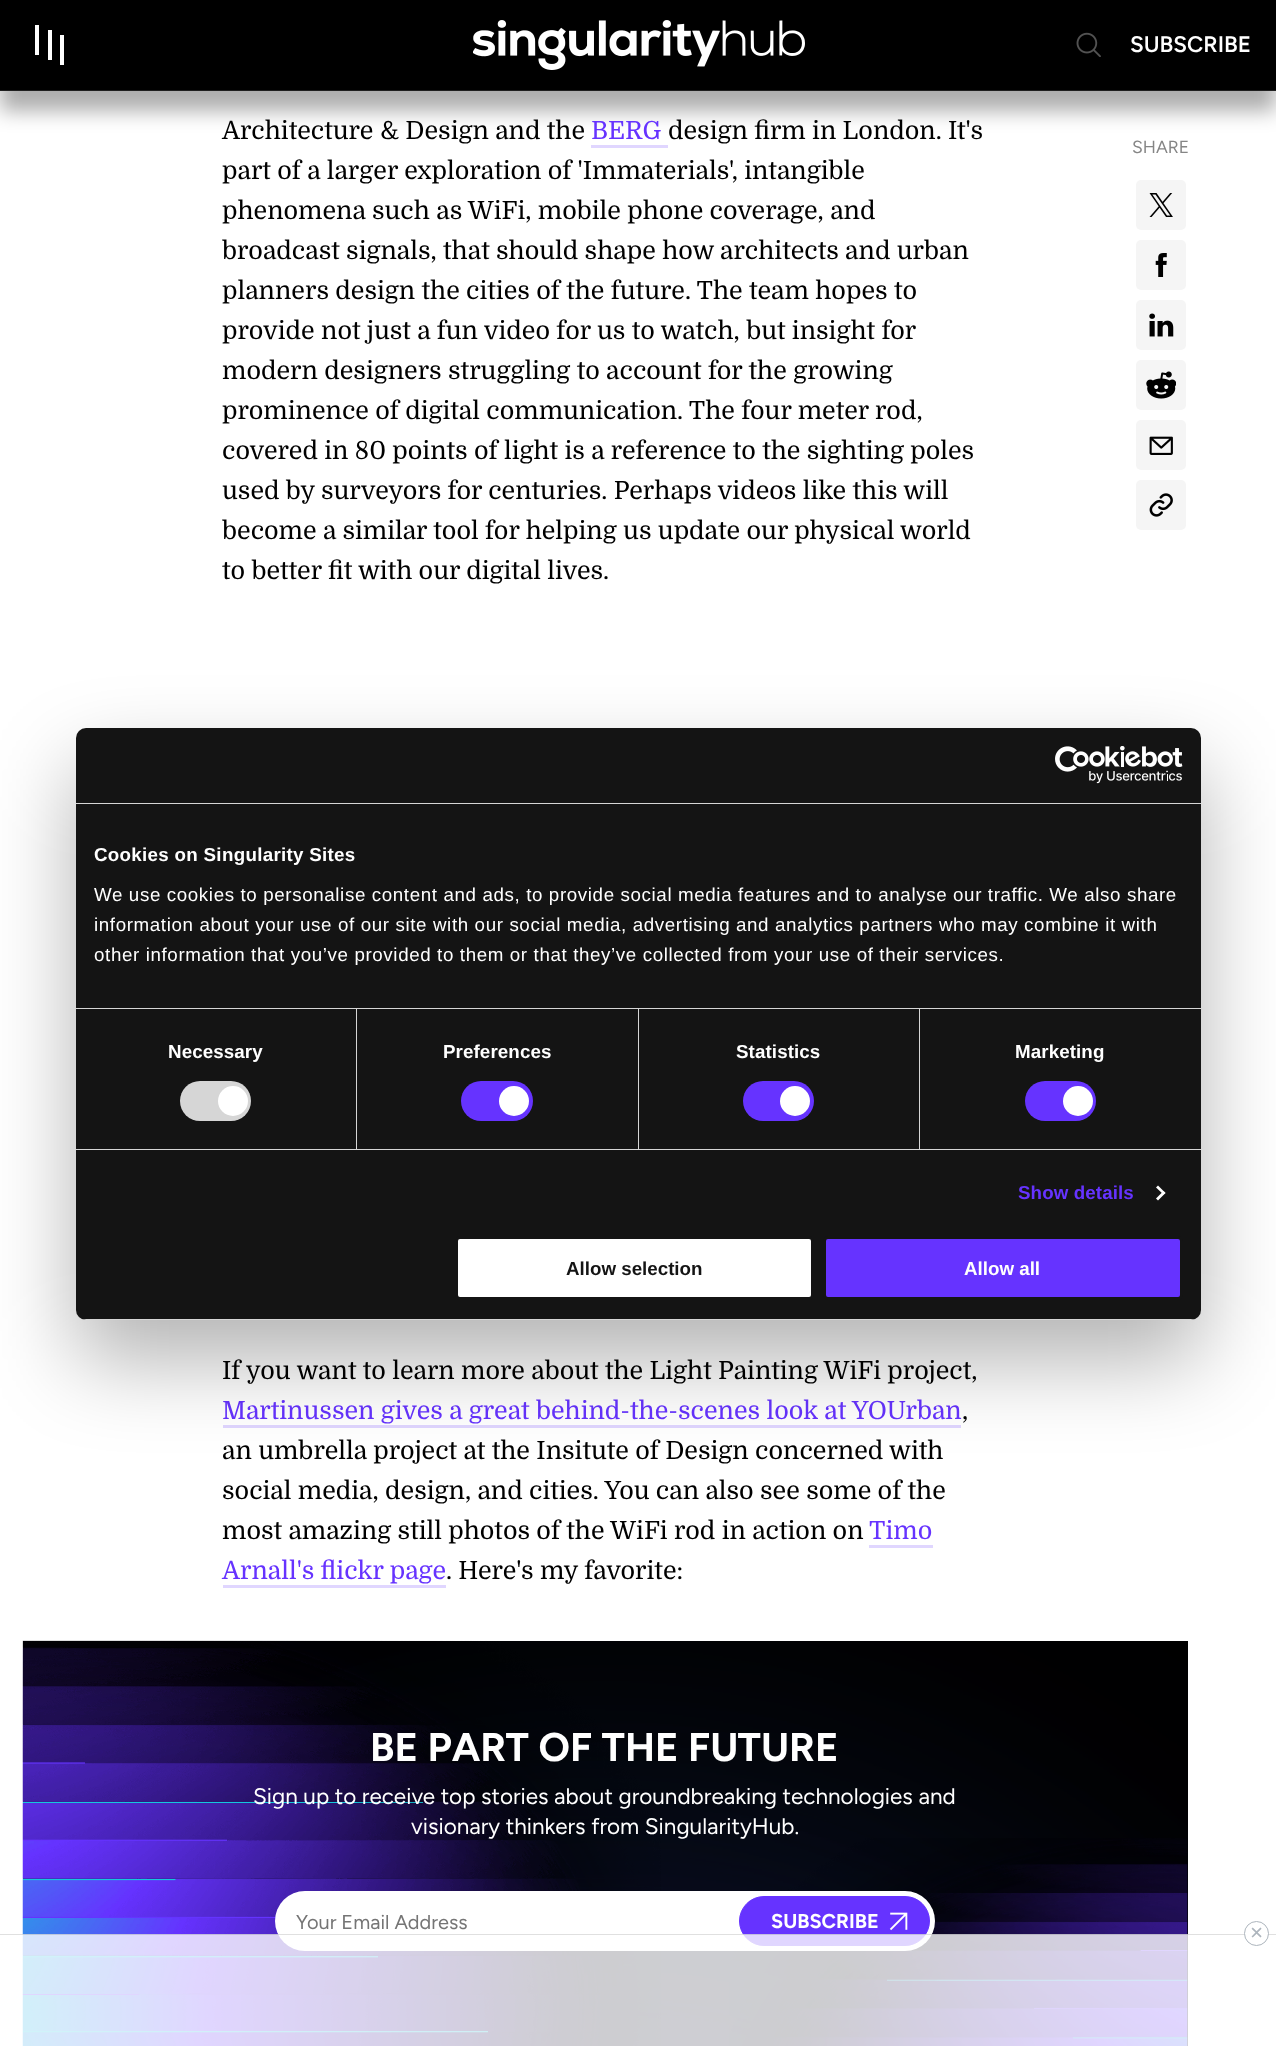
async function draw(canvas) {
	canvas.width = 1276;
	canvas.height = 2046;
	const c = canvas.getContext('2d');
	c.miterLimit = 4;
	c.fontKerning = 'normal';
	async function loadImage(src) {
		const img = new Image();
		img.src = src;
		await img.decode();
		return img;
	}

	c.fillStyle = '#fff';
	c.fillRect(0, 0, 1276, 2046);
	c.fillStyle = '#00000052';
	c.filter = 'blur(10px)';
	c.beginPath();
	c.rect(0, 20, 1276, 91);
	c.fill();
	c.filter = 'none';
	for (const [x, y, w, h, color] of [
		[0, 0, 1276, 90, '#000'],
		[0, 90, 1276, 1, '#1f1f1f'],
		[35, 25, 4, 30, '#fff'],
		[48, 30, 4, 30, '#fff'],
		[60, 35, 4, 30, '#fff'],
	]) {
		c.fillStyle = color;
		c.fillRect(x, y, w, h);
	}
	c.drawImage(await loadImage('img1.png'), 473, 20, 332, 50);
	c.drawImage(await loadImage('img2.png'), 1076, 32, 25, 25);
	c.font = '600 22.5px Figtree';
	c.fillText('SUBSCRIBE', 1130, 52);
	c.font = '25px Domine';
	c.fillStyle = '#000';
	c.fillText('Architecture & Design and the', 222, 139);
	c.fillStyle = '#63f';
	c.fillText('BERG', 591, 139);
	c.fillStyle = '#e0d6ff';
	c.fillRect(591, 145, 77, 3);
	c.fillStyle = '#000';
	for (const [text, x, y] of [
		['design firm in London. It\'s', 668, 139],
		['part of a larger exploration of \'Immaterials\', intangible', 222, 179],
		['phenomena such as WiFi, mobile phone coverage, and', 222, 219],
		['broadcast signals, that should shape how architects and urban', 222, 259],
		['planners design the cities of the future. The team hopes to', 222, 299],
		['provide not just a fun video for us to watch, but insight for', 222, 339],
		['modern designers struggling to account for the growing', 222, 379],
		['prominence of digital communication. The four meter rod,', 222, 419],
		['covered in 80 points of light is a reference to the sighting poles', 222, 459],
		['used by surveyors for centuries. Perhaps videos like this will', 222, 499],
		['become a similar tool for helping us update our physical world', 222, 539],
		['to better fit with our digital lives.', 222, 579],
		['If you want to learn more about the Light Painting WiFi project,', 222, 1379],
	]) {
		c.fillText(text, x, y);
	}
	c.fillStyle = '#63f';
	c.fillText('Martinussen gives a great behind-the-scenes look at YOUrban', 222, 1419);
	c.fillStyle = '#e0d6ff';
	c.fillRect(223, 1425, 738, 3);
	c.fillStyle = '#000';
	for (const [text, x, y] of [
		[',', 962, 1419],
		['an umbrella project at the Insitute of Design concerned with', 222, 1459],
		['social media, design, and cities. You can also see some of the', 222, 1499],
		['most amazing still photos of the WiFi rod in action on', 222, 1539],
	]) {
		c.fillText(text, x, y);
	}
	c.fillStyle = '#63f';
	c.fillText('Timo', 869, 1539);
	c.fillStyle = '#e0d6ff';
	c.fillRect(869, 1545, 64, 3);
	c.fillStyle = '#63f';
	c.fillText('Arnall\'s flickr page', 222, 1579);
	c.fillStyle = '#e0d6ff';
	c.fillRect(223, 1585, 223, 3);
	c.fillStyle = '#000';
	c.fillText('. Here\'s my favorite:', 446, 1579);
	c.fillRect(23, 1641, 1165, 405);
	c.save();
	c.beginPath();
	c.rect(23, 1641, 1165, 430);
	c.clip();
	c.fillStyle = '#032024';
	c.filter = 'blur(200px)';
	c.beginPath();
	c.roundRect(-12, 1891, 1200, 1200, 600);
	c.fill();
	c.filter = 'none';
	c.fillStyle = '#100829';
	c.filter = 'blur(200px)';
	c.beginPath();
	c.roundRect(23, 1891, 1200, 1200, 600);
	c.fill();
	c.filter = 'none';
	c.restore();
	c.drawImage(await loadImage('img3.png'), 22, 1640, 639, 406);
	c.font = 'bold 40px Figtree';
	c.fillStyle = '#fff';
	c.fillText('BE PART OF THE FUTURE', 370, 1761);
	c.font = '22.5px Figtree';
	c.fillText('Sign up to receive top stories about groundbreaking technologies and', 253, 1804);
	c.drawImage(await loadImage('img5.png'), 729, 1838, 459, 208);
	c.fillText('visionary thinkers from SingularityHub.', 411, 1834);
	c.beginPath();
	c.roundRect(275, 1891, 660, 60, 30);
	c.fill();
	c.font = '20px Figtree';
	c.fillStyle = '#757575';
	c.fillText('Your Email Address', 296, 1929);
	c.fillStyle = '#63f';
	c.beginPath();
	c.roundRect(739.5, 1896.5, 190, 49, 24.5);
	c.fill();
	c.strokeStyle = '#63f';
	c.stroke();
	c.font = 'bold 20px Figtree';
	c.fillStyle = '#fff';
	c.fillText('SUBSCRIBE', 771, 1928);
	c.drawImage(await loadImage('img4.png'), 889, 1912, 19, 19);
	c.font = '17.5px Figtree';
	c.fillStyle = '#858585';
	c.fillText('SHARE', 1132, 153);
	c.fillStyle = '#f5f5f5';
	c.beginPath();
	c.roundRect(1136, 180, 50, 50, 5);
	c.fill();
	c.drawImage(await loadImage('img6.png'), 1149, 193, 24, 24);
	c.beginPath();
	c.roundRect(1136, 240, 50, 50, 5);
	c.fill();
	c.drawImage(await loadImage('img7.png'), 1155, 253, 12, 24);
	c.beginPath();
	c.roundRect(1136, 300, 50, 50, 5);
	c.fill();
	c.drawImage(await loadImage('img8.png'), 1149, 313, 25, 24);
	c.beginPath();
	c.roundRect(1136, 360, 50, 50, 5);
	c.fill();
	c.drawImage(await loadImage('img9.png'), 1146, 371, 30, 28);
	c.beginPath();
	c.roundRect(1136, 420, 50, 50, 5);
	c.fill();
	c.drawImage(await loadImage('img10.png'), 1149, 436, 24, 19);
	c.beginPath();
	c.roundRect(1136, 480, 50, 50, 5);
	c.fill();
	c.drawImage(await loadImage('img11.png'), 1149, 493, 24, 24);
	c.fillStyle = '#0000004d';
	c.filter = 'blur(42.5px)';
	c.beginPath();
	c.roundRect(76, 768, 1125, 592, 10);
	c.fill();
	c.filter = 'none';
	c.fillStyle = '#141414';
	c.beginPath();
	c.roundRect(76, 728, 1125, 592, 10);
	c.fill();
	c.fillStyle = '#d6d6d6';
	c.fillRect(76, 803, 1125, 1);
	c.drawImage(await loadImage('img12.png'), 1055, 746, 128, 38);
	c.fillRect(76, 1008, 1125, 1);
	c.letterSpacing = '0.3px';
	c.font = 'bold 18.75px Liberation Sans';
	c.fillStyle = '#fff';
	c.fillText('Cookies on Singularity Sites', 94, 861);
	c.letterSpacing = '0.62px';
	c.font = '18.75px Liberation Sans';
	for (const [text, x, y] of [
		['We use cookies to personalise content and ads, to provide social media features and to analyse our traffic. We also share', 94, 901],
		['information about your use of our site with our social media, advertising and analytics partners who may combine it with', 94, 931],
		['other information that you’ve provided to them or that they’ve collected from your use of their services.', 94, 961],
	]) {
		c.fillText(text, x, y);
	}
	c.fillStyle = '#d6d6d6';
	c.fillRect(76, 1149, 1125, 1);
	c.fillRect(356, 1009, 1, 140);
	c.letterSpacing = '0.1px';
	c.font = 'bold 18.75px Liberation Sans';
	c.fillStyle = '#fff';
	c.fillText('Necessary', 168, 1058);
	c.fillStyle = '#d6d6d6';
	c.beginPath();
	c.roundRect(180, 1081, 71, 40, 20);
	c.fill();
	c.fillStyle = '#fff';
	c.beginPath();
	c.arc(233, 1101, 15, 0, 2 * Math.PI);
	c.fill();
	c.fillStyle = '#d6d6d6';
	c.fillRect(638, 1009, 1, 140);
	c.fillStyle = '#fff';
	c.fillText('Preferences', 443, 1058);
	c.fillStyle = '#63f';
	c.beginPath();
	c.roundRect(461, 1081, 72, 40, 20);
	c.fill();
	c.fillStyle = '#fff';
	c.beginPath();
	c.arc(514, 1101, 15, 0, 2 * Math.PI);
	c.fill();
	c.fillStyle = '#d6d6d6';
	c.fillRect(919, 1009, 1, 140);
	c.fillStyle = '#fff';
	c.fillText('Statistics', 736, 1058);
	c.fillStyle = '#63f';
	c.beginPath();
	c.roundRect(743, 1081, 71, 40, 20);
	c.fill();
	c.fillStyle = '#fff';
	c.beginPath();
	c.arc(795, 1101, 15, 0, 2 * Math.PI);
	c.fill();
	c.fillText('Marketing', 1015, 1058);
	c.fillStyle = '#63f';
	c.beginPath();
	c.roundRect(1025, 1081, 71, 40, 20);
	c.fill();
	c.fillStyle = '#fff';
	c.beginPath();
	c.arc(1078, 1101, 15, 0, 2 * Math.PI);
	c.fill();
	c.fillStyle = '#63f';
	c.fillText('Show details', 1018, 1199);
	c.fillStyle = '#fff';
	c.beginPath();
	c.moveTo(1158, 1185.5);
	c.lineTo(1165.5, 1193);
	c.lineTo(1163.5, 1194.5);
	c.lineTo(1156, 1187.5);
	c.closePath();
	c.fill();
	c.beginPath();
	c.moveTo(1163.5, 1191);
	c.lineTo(1165.5, 1193);
	c.lineTo(1158, 1200.5);
	c.lineTo(1156, 1198.5);
	c.closePath();
	c.fill();
	c.save();
	c.beginPath();
	c.roundRect(76, 728, 1125, 592, 10);
	c.clip();
	c.fillStyle = '#d6d6d6';
	c.fillRect(76, 1319, 1125, 1);
	c.restore();
	c.beginPath();
	c.roundRect(456.5, 1237.5, 356, 61, 3.5);
	c.fill();
	c.strokeStyle = '#141414';
	c.lineWidth = 3;
	c.stroke();
	c.letterSpacing = '0px';
	c.fillStyle = '#141414';
	c.fillText('Allow selection', 566, 1275);
	c.fillStyle = '#63f';
	c.beginPath();
	c.roundRect(824.5, 1237.5, 357, 61, 3.5);
	c.fill();
	c.stroke();
	c.fillStyle = '#fff';
	c.fillText('Allow all', 964, 1275);
	c.fillStyle = '#ffffffcc';
	c.fillRect(22, 1934, 1166, 112);
	c.fillStyle = '#0000001f';
	c.fillRect(0, 1934, 1276, 1);
	c.fillStyle = '#fff';
	c.beginPath();
	c.arc(1256.5, 1933.5, 12, 0, 2 * Math.PI);
	c.fill();
	c.strokeStyle = '#adb5bd';
	c.lineWidth = 1;
	c.stroke();
	c.font = '22.5px Liberation Sans';
	c.fillStyle = '#adb5bd';
	c.fillText('×', 1250, 1940);
}

draw(document.querySelector('canvas'));
